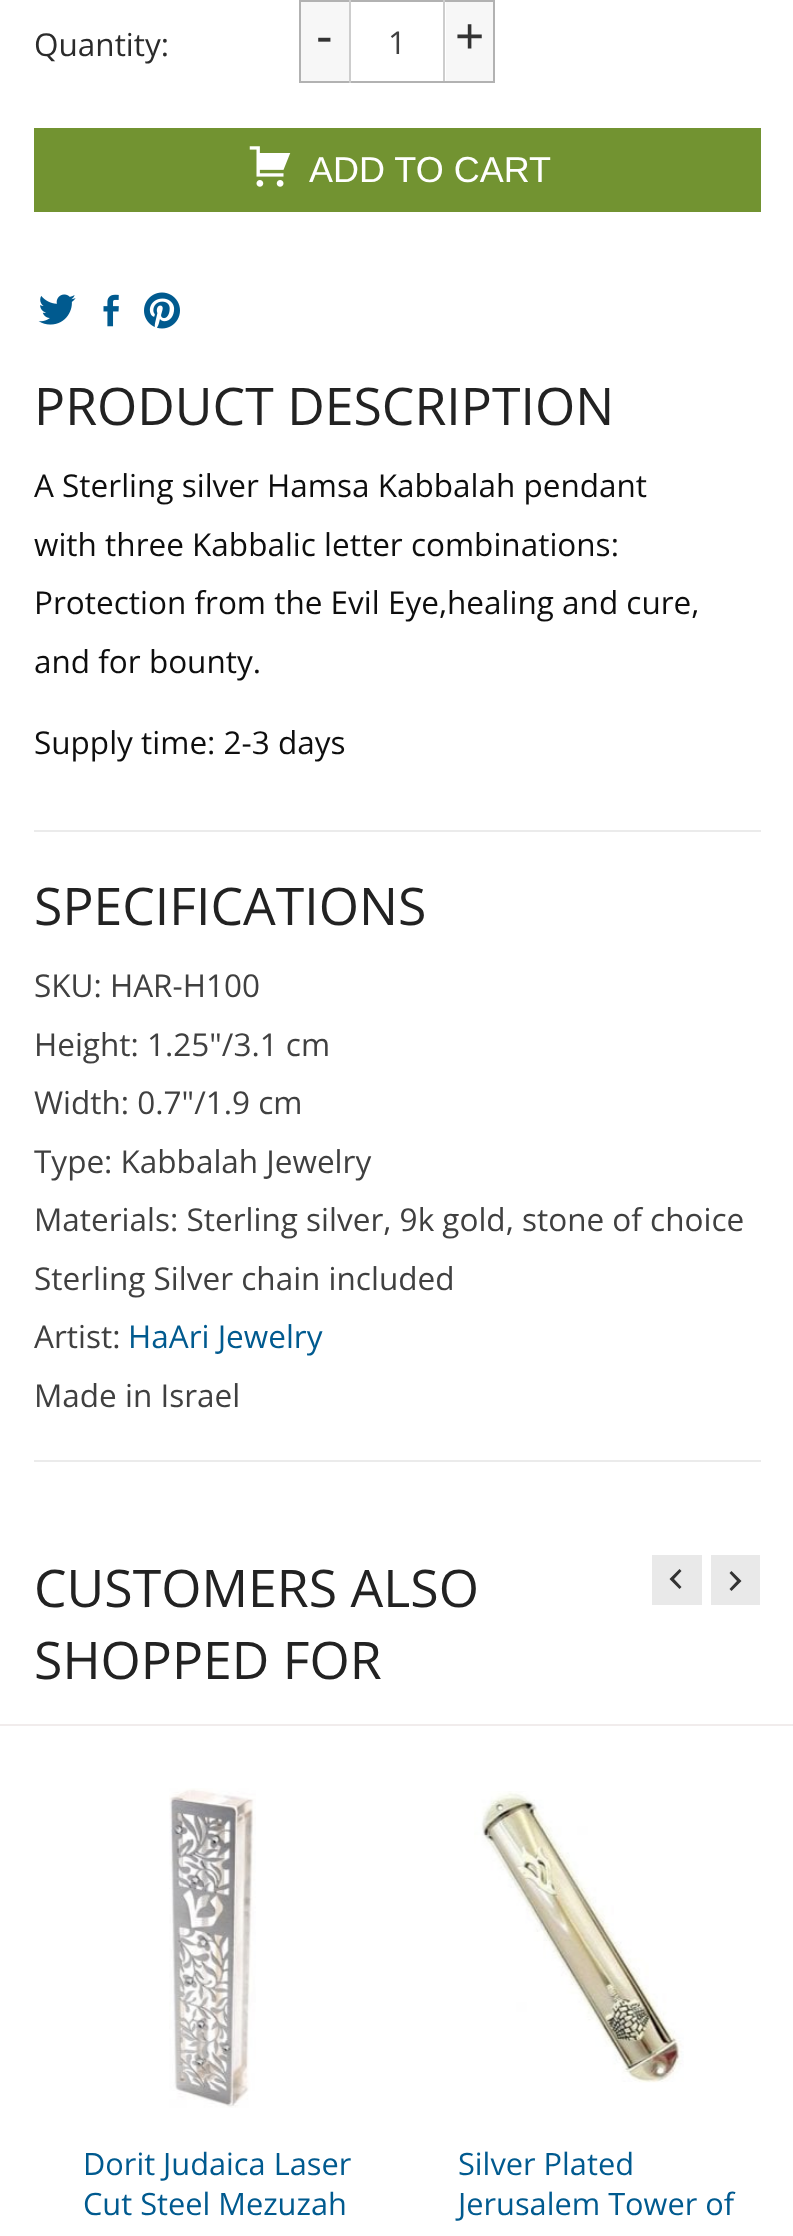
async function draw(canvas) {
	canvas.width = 793;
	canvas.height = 2236;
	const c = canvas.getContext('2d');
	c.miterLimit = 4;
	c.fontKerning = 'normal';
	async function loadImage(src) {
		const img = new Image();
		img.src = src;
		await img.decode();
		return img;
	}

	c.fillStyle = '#fff';
	c.fillRect(0, 0, 793, 2236);
	c.font = '31.5px Open Sans';
	c.fillStyle = '#2b2b2b';
	c.fillText('Quantity:', 34, 56);
	for (const [x, y, w, h, color] of [
		[301, 2, 48, 79, '#f7f7f7'],
		[299, 0, 196, 2, '#b2b2b2'],
		[443, 0, 2, 83, '#cdcdcd'],
		[299, 81, 147, 2, '#b2b2b2'],
		[299, 0, 2, 83, '#b2b2b2'],
	]) {
		c.fillStyle = color;
		c.fillRect(x, y, w, h);
	}
	c.font = '50px Liberation Sans';
	c.fillStyle = '#333';
	c.fillText('-', 316, 53);
	c.fillStyle = '#cdcdcd';
	c.fillRect(349, 0, 2, 83);
	c.font = '31.5px Open Sans';
	c.fillStyle = '#404040';
	c.fillText('1', 388, 54);
	for (const [x, y, w, h, color] of [
		[446, 2, 47, 79, '#f7f7f7'],
		[493, 0, 2, 83, '#b2b2b2'],
		[446, 81, 49, 2, '#b2b2b2'],
	]) {
		c.fillStyle = color;
		c.fillRect(x, y, w, h);
	}
	c.font = '50px Liberation Sans';
	c.fillStyle = '#333';
	c.fillText('+', 455, 53);
	c.fillStyle = '#729331';
	c.fillRect(34, 128, 727, 84);
	c.drawImage(await loadImage('img1.png'), 249, 146, 42, 41);
	c.font = '36px Liberation Sans';
	c.fillStyle = '#fff';
	c.fillText('ADD TO CART', 309, 182);
	c.drawImage(await loadImage('img2.png'), 38, 294, 38, 31);
	c.drawImage(await loadImage('img3.png'), 103, 294, 16, 33);
	c.drawImage(await loadImage('img4.png'), 144, 292, 36, 37);
	c.font = '51.75px Open Sans';
	c.fillStyle = '#222';
	c.fillText('PRODUCT DESCRIPTION', 34, 425);
	c.font = '31.5px Open Sans';
	c.fillStyle = '#0e0e0e';
	for (const [text, x, y] of [
		['A Sterling silver Hamsa Kabbalah pendant', 34, 497],
		['with three Kabbalic letter combinations:', 34, 556],
		['Protection from the Evil Eye,healing and cure,', 34, 614],
		['and for bounty.', 34, 673],
		['Supply time: 2-3 days', 34, 754],
	]) {
		c.fillText(text, x, y);
	}
	c.fillStyle = '#ebebeb';
	c.fillRect(34, 830, 727, 2);
	c.font = '51.75px Open Sans';
	c.fillStyle = '#222';
	c.fillText('SPECIFICATIONS', 34, 925);
	c.font = '31.5px Open Sans';
	c.fillStyle = '#404040';
	for (const [text, x, y] of [
		['SKU: HAR-H100', 34, 997],
		['Height: 1.25"/3.1 cm', 34, 1056],
		['Width: 0.7"/1.9 cm', 34, 1114],
		['Type: Kabbalah Jewelry', 34, 1173],
		['Materials: Sterling silver, 9k gold, stone of choice', 34, 1231],
		['Sterling Silver chain included', 34, 1290],
		['Artist:', 34, 1348],
	]) {
		c.fillText(text, x, y);
	}
	c.fillStyle = '#005a8f';
	c.fillText('HaAri Jewelry', 128, 1348);
	c.fillStyle = '#404040';
	c.fillText('Made in Israel', 34, 1407);
	c.fillStyle = '#ebebeb';
	c.fillRect(34, 1460, 727, 2);
	c.fillStyle = '#f1ecec';
	c.fillRect(0, 1724, 793, 2);
	c.font = '51.75px Open Sans';
	c.fillStyle = '#222';
	c.fillText('CUSTOMERS ALSO', 34, 1607);
	c.fillText('SHOPPED FOR', 34, 1679);
	c.fillStyle = '#e9e9e9';
	c.fillRect(652, 1555, 50, 50);
	c.fillStyle = '#333';
	c.beginPath();
	c.moveTo(681.5, 1587);
	c.lineTo(679.5, 1589);
	c.lineTo(669.5, 1579);
	c.lineTo(679.5, 1569);
	c.lineTo(681.5, 1571);
	c.lineTo(674, 1579);
	c.closePath();
	c.fill();
	c.fillStyle = '#e9e9e9';
	c.fillRect(711, 1555, 49, 50);
	c.fillStyle = '#333';
	c.beginPath();
	c.moveTo(729.5, 1589);
	c.lineTo(737, 1581);
	c.lineTo(729.5, 1573);
	c.lineTo(731.5, 1571);
	c.lineTo(741.5, 1581);
	c.lineTo(731.5, 1591);
	c.closePath();
	c.fill();
	c.drawImage(await loadImage('img5.png'), 169, 1788, 87, 320);
	c.font = '30.75px Open Sans';
	c.fillStyle = '#005a8f';
	c.fillText('Dorit Judaica Laser', 83, 2175);
	c.fillText('Cut Steel Mezuzah', 83, 2215);
	c.drawImage(await loadImage('img6.png'), 474, 1791, 210, 292);
	c.fillText('Silver Plated', 458, 2175);
	c.fillText('Jerusalem Tower of', 458, 2215);
}

draw(document.querySelector('canvas'));
